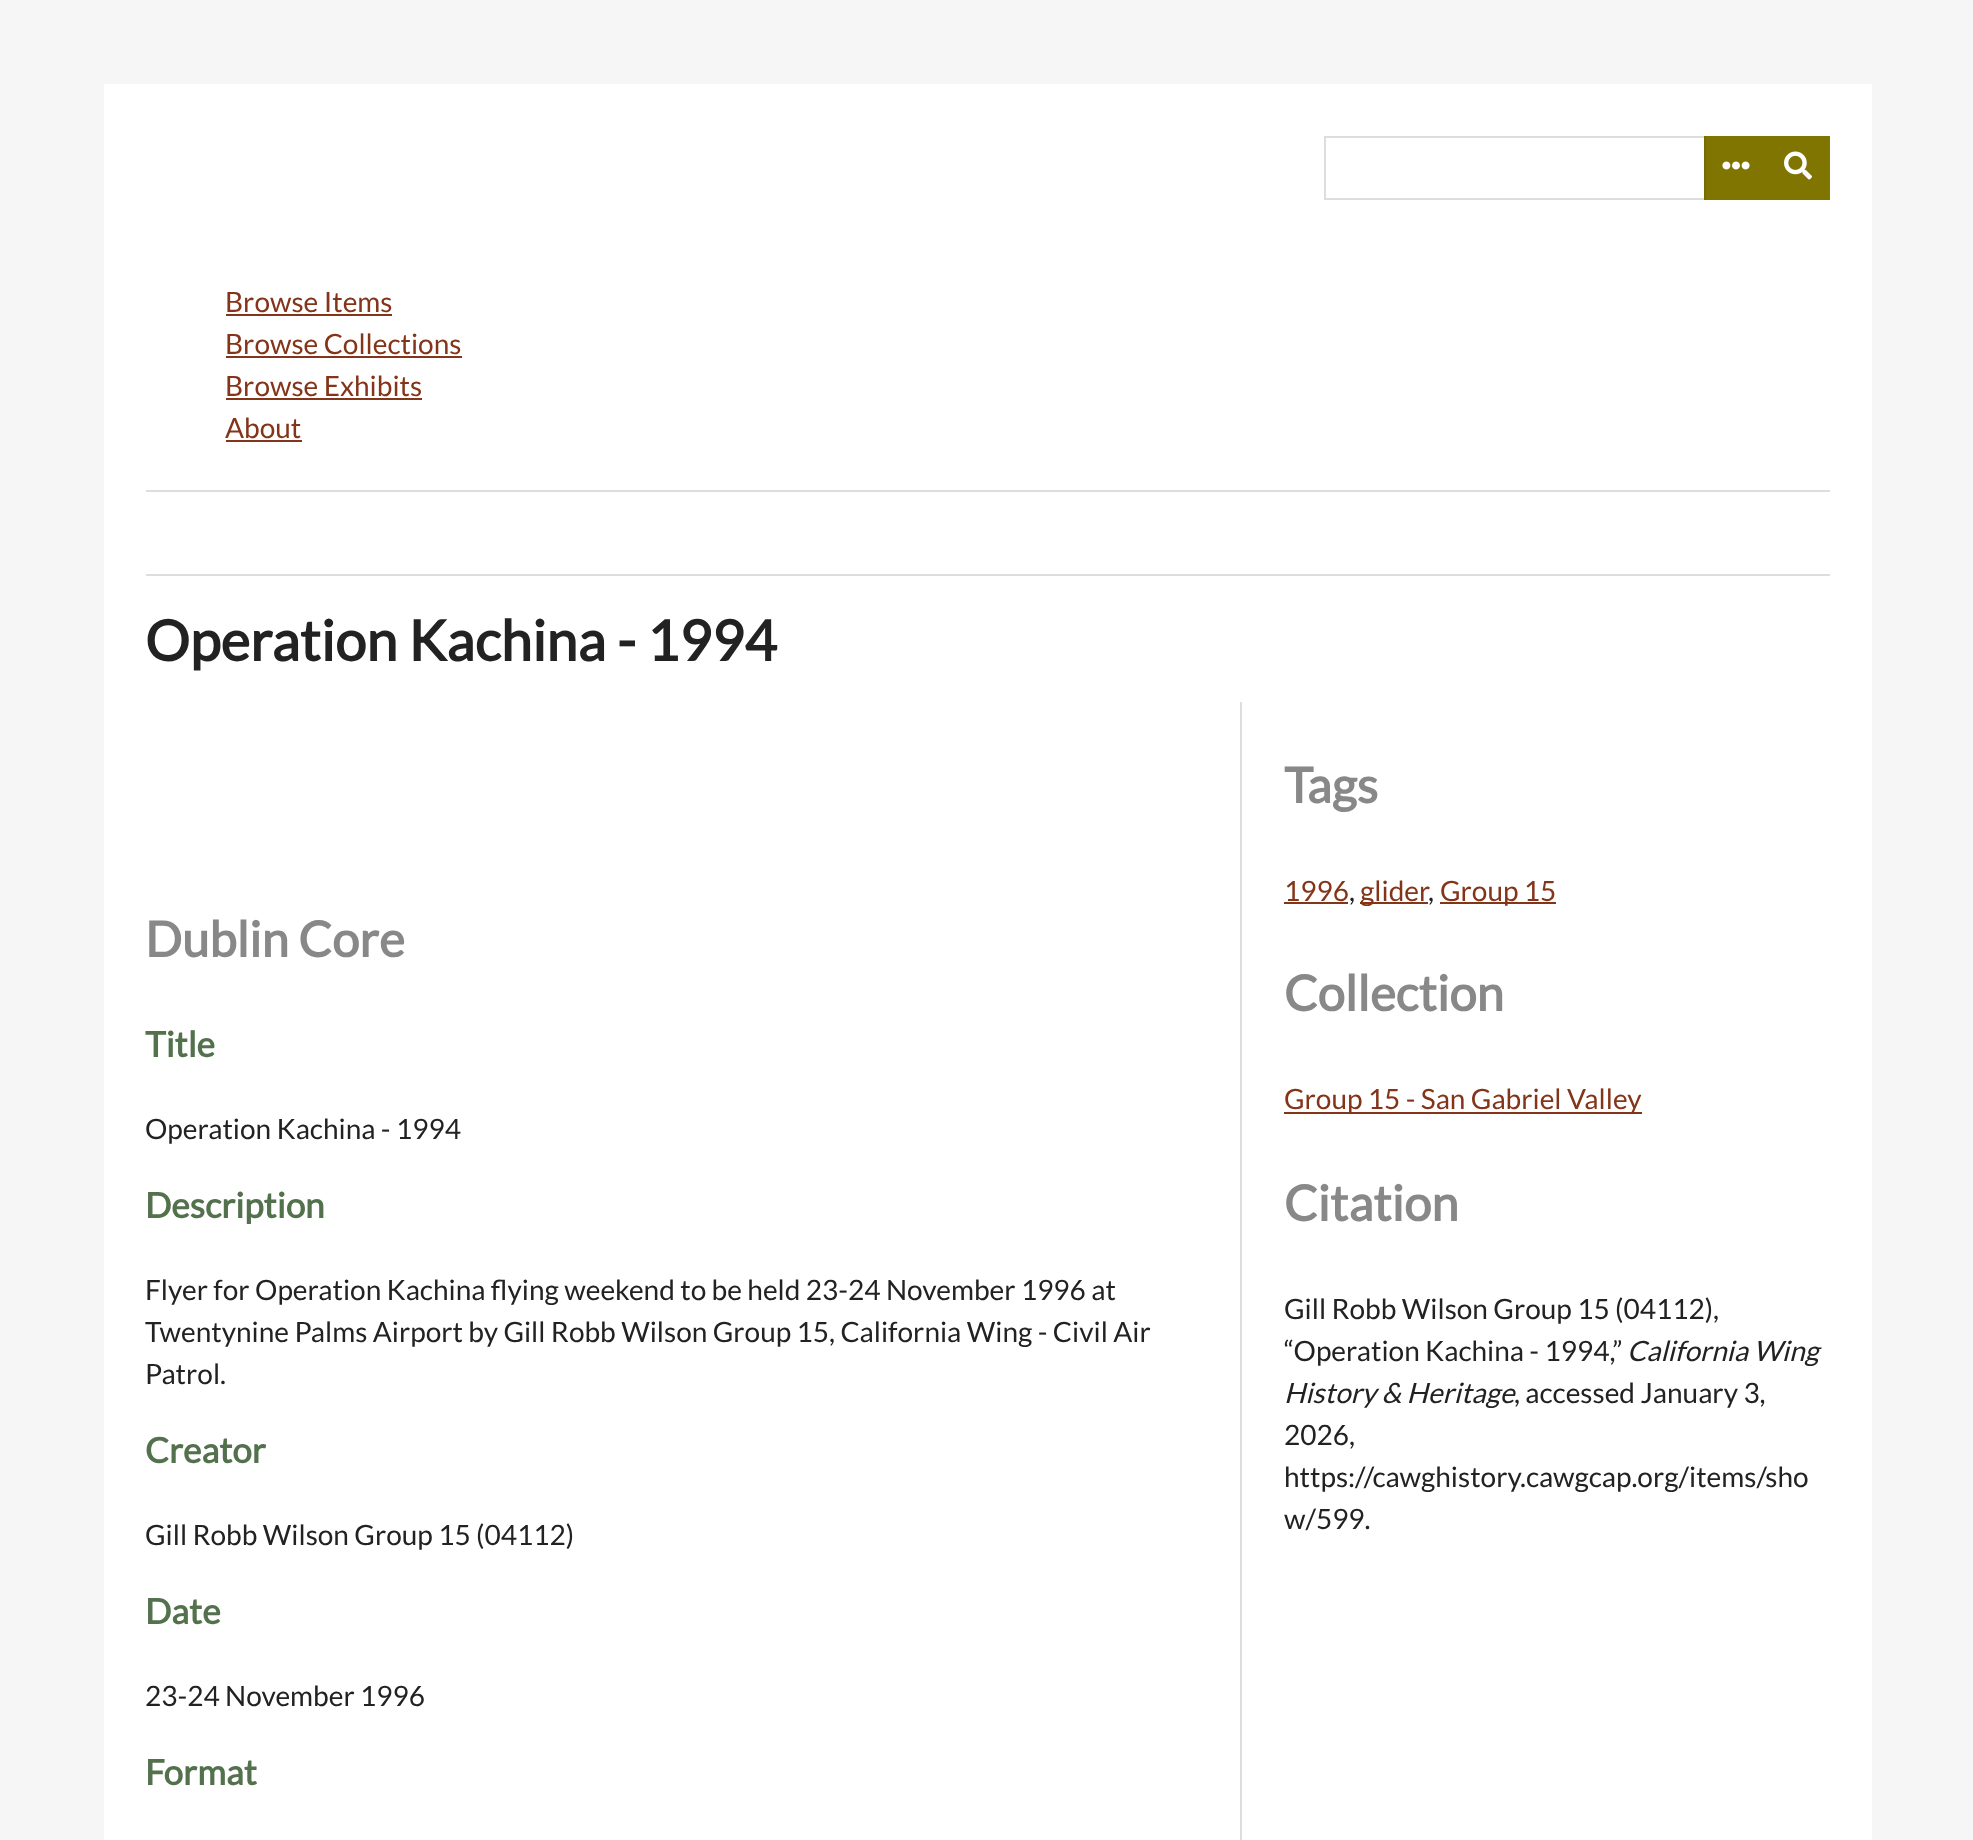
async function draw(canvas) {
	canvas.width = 1973;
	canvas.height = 1840;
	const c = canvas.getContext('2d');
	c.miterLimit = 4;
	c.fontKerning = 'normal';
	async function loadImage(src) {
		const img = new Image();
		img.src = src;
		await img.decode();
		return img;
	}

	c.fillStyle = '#f6f6f6';
	c.fillRect(0, 0, 1973, 1840);
	c.fillStyle = '#fff';
	c.fillRect(104, 84, 1768, 1756);
	c.strokeStyle = '#ddd';
	c.lineWidth = 2;
	c.strokeRect(1325, 137, 504, 62);
	c.fillStyle = '#807500';
	c.fillRect(1706, 136, 124, 64);
	c.fillStyle = '#766c00';
	c.fillRect(1704, 136, 2, 64);
	c.drawImage(await loadImage('img1.png'), 1722, 161, 28, 9);
	c.drawImage(await loadImage('img2.png'), 1784, 151, 28, 29);
	c.font = '28px Lato';
	c.fillStyle = '#843418';
	c.fillText('Browse Items', 225, 312);
	c.fillRect(226, 314, 166, 2);
	c.fillText('Browse Collections', 225, 354);
	c.fillRect(226, 356, 236, 2);
	c.fillText('Browse Exhibits', 225, 396);
	c.fillRect(226, 398, 196, 2);
	c.fillText('About', 225, 438);
	for (const [x, y, w, h, color] of [
		[226, 440, 76, 2, '#843418'],
		[146, 490, 1684, 2, '#ddd'],
		[146, 574, 1684, 2, '#ddd'],
	]) {
		c.fillStyle = color;
		c.fillRect(x, y, w, h);
	}
	c.font = 'bold 56px Lato';
	c.fillStyle = '#222';
	c.fillText('Operation Kachina - 1994', 145, 661);
	c.font = 'bold 49px Lato';
	c.fillStyle = '#888';
	c.fillText('Dublin Core', 145, 957);
	c.font = 'bold 35px Lato';
	c.fillStyle = '#52714c';
	c.fillText('Title', 145, 1057);
	c.font = '28px Lato';
	c.fillStyle = '#222';
	c.fillText('Operation Kachina - 1994', 145, 1139);
	c.font = 'bold 35px Lato';
	c.fillStyle = '#52714c';
	c.fillText('Description', 145, 1218);
	c.font = '28px Lato';
	c.fillStyle = '#222';
	for (const [text, x, y] of [
		['Flyer for Operation Kachina flying weekend to be held 23-24 November 1996 at', 145, 1300],
		['Twentynine Palms Airport by Gill Robb Wilson Group 15, California Wing - Civil Air', 145, 1342],
		['Patrol.', 145, 1384],
	]) {
		c.fillText(text, x, y);
	}
	c.font = 'bold 35px Lato';
	c.fillStyle = '#52714c';
	c.fillText('Creator', 145, 1463);
	c.font = '28px Lato';
	c.fillStyle = '#222';
	c.fillText('Gill Robb Wilson Group 15 (04112)', 145, 1545);
	c.font = 'bold 35px Lato';
	c.fillStyle = '#52714c';
	c.fillText('Date', 145, 1624);
	c.font = '28px Lato';
	c.fillStyle = '#222';
	c.fillText('23-24 November 1996', 145, 1706);
	c.font = 'bold 35px Lato';
	c.fillStyle = '#52714c';
	c.fillText('Format', 145, 1785);
	c.fillStyle = '#ddd';
	c.fillRect(1240, 702, 2, 1138);
	c.font = 'bold 49px Lato';
	c.fillStyle = '#888';
	c.fillText('Tags', 1284, 803);
	c.font = '28px Lato';
	c.fillStyle = '#843418';
	c.fillText('1996', 1284, 901);
	c.fillRect(1284, 902, 64, 2);
	c.fillStyle = '#222';
	c.fillText(',', 1349, 901);
	c.fillStyle = '#843418';
	c.fillRect(1360, 902, 68, 2);
	c.fillText('glider', 1360, 901);
	c.fillStyle = '#222';
	c.fillText(',', 1428, 901);
	c.fillStyle = '#843418';
	c.fillRect(1440, 902, 116, 2);
	c.fillText('Group 15', 1440, 901);
	c.font = 'bold 49px Lato';
	c.fillStyle = '#888';
	c.fillText('Collection', 1284, 1011);
	c.fillStyle = '#843418';
	c.fillRect(1284, 1112, 358, 2);
	c.font = '28px Lato';
	c.fillText('Group 15 - San Gabriel Valley', 1284, 1109);
	c.font = 'bold 49px Lato';
	c.fillStyle = '#888';
	c.fillText('Citation', 1284, 1221);
	c.font = '28px Lato';
	c.fillStyle = '#222';
	c.fillText('Gill Robb Wilson Group 15 (04112),', 1284, 1319);
	c.fillText('“Operation Kachina - 1994,”', 1284, 1361);
	c.font = 'italic 28px Lato';
	c.fillText('California Wing', 1627, 1361);
	c.fillText('History & Heritage', 1284, 1403);
	c.font = '28px Lato';
	for (const [text, x, y] of [
		[', accessed January 3,', 1514, 1403],
		['2026,', 1284, 1445],
		['https://cawghistory.cawgcap.org/items/sho', 1284, 1487],
		['w/599.', 1284, 1529],
	]) {
		c.fillText(text, x, y);
	}
}

draw(document.querySelector('canvas'));
